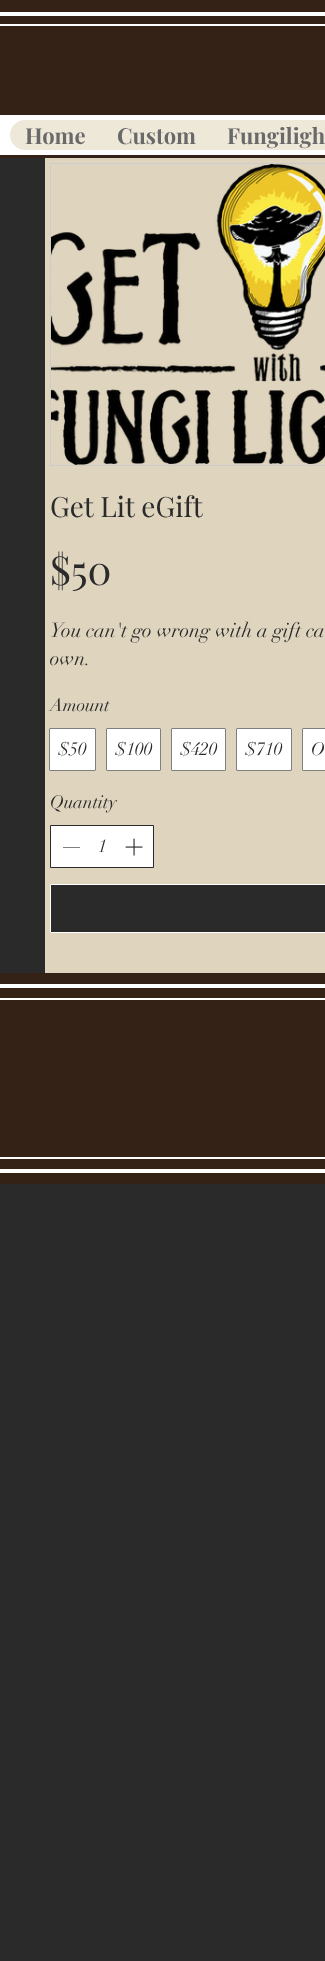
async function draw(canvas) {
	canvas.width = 325;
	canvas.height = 1961;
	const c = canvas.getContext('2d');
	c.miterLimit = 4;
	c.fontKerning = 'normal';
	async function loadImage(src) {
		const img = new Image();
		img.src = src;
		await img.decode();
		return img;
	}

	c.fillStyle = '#2a2a2a';
	c.fillRect(0, 0, 325, 1961);
	for (const [x, y, w, h, color] of [
		[0, 0, 325, 158, '#342216'],
		[0, 12, 325, 4, '#fff'],
		[0, 24, 325, 2, '#fff'],
		[0, 115, 325, 40, '#fff'],
	]) {
		c.fillStyle = color;
		c.fillRect(x, y, w, h);
	}
	c.fillStyle = '#eee8d8';
	c.beginPath();
	c.roundRect(10, 120, 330, 30, 15);
	c.fill();
	c.font = 'bold 22px Playfair Display';
	c.fillStyle = '#696969';
	for (const [text, x, y] of [
		['Home', 25, 144],
		['Custom', 117, 144],
		['Fungiligh', 227, 144],
	]) {
		c.fillText(text, x, y);
	}
	c.fillStyle = '#dfd5bf';
	c.fillRect(45, 158, 280, 815);
	c.strokeStyle = '#ccc';
	c.strokeRect(50.5, 163.5, 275, 302);
	c.drawImage(await loadImage('img1.png'), 51, 164, 274, 301);
	c.font = '28px Playfair Display';
	c.fillStyle = '#2a2a2a';
	c.fillText('Get Lit eGift', 50, 517);
	c.font = '40px Playfair Display';
	c.fillText('$50', 50, 585);
	c.font = '20px didot';
	c.fillText('You can\'t go wrong with a gift ca', 50, 637);
	c.fillText('own.', 50, 665);
	c.font = '18px didot';
	c.fillText('Amount', 50, 711);
	c.fillStyle = '#fff';
	c.beginPath();
	c.roundRect(49, 728, 47, 43, 1);
	c.fill();
	c.beginPath();
	c.roundRect(49.5, 728.5, 46, 42, 0.5);
	c.strokeStyle = '#2a2a2a99';
	c.stroke();
	c.fillStyle = '#2a2a2a';
	c.fillText('$50', 58, 755);
	c.fillStyle = '#fff';
	c.beginPath();
	c.roundRect(106, 728, 55, 43, 1);
	c.fill();
	c.beginPath();
	c.roundRect(106.5, 728.5, 54, 42, 0.5);
	c.stroke();
	c.fillStyle = '#2a2a2a';
	c.fillText('$100', 115, 755);
	c.fillStyle = '#fff';
	c.beginPath();
	c.roundRect(171, 728, 55, 43, 1);
	c.fill();
	c.beginPath();
	c.roundRect(171.5, 728.5, 54, 42, 0.5);
	c.stroke();
	c.fillStyle = '#2a2a2a';
	c.fillText('$420', 180, 755);
	c.fillStyle = '#fff';
	c.beginPath();
	c.roundRect(236, 728, 56, 43, 1);
	c.fill();
	c.beginPath();
	c.roundRect(236.5, 728.5, 55, 42, 0.5);
	c.stroke();
	c.fillStyle = '#2a2a2a';
	c.fillText('$710', 245, 755);
	c.fillStyle = '#fff';
	c.beginPath();
	c.roundRect(302, 728, 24, 43, 1);
	c.fill();
	c.beginPath();
	c.roundRect(302.5, 728.5, 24, 42, 0.5);
	c.stroke();
	c.fillStyle = '#2a2a2a';
	c.fillText('O', 311, 755);
	c.fillText('Quantity', 50, 808);
	c.fillStyle = '#fff';
	c.beginPath();
	c.rect(50.5, 825.5, 103, 42);
	c.fill();
	c.strokeStyle = '#2a2a2a';
	c.stroke();
	c.fillStyle = '#808080';
	c.fillRect(63, 847, 17, 1);
	c.fillStyle = '#2a2a2a';
	c.fillText('1', 98, 852);
	c.drawImage(await loadImage('img2.png'), 125, 838, 18, 18);
	c.beginPath();
	c.roundRect(50.5, 884.5, 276, 48, 0.5);
	c.fill();
	c.strokeStyle = '#fff';
	c.stroke();
	for (const [x, y, w, h, color] of [
		[0, 973, 325, 211, '#342216'],
		[0, 984, 325, 4, '#fff'],
		[0, 1169, 325, 4, '#fff'],
		[0, 998, 325, 2, '#fff'],
		[0, 1157, 325, 2, '#fff'],
	]) {
		c.fillStyle = color;
		c.fillRect(x, y, w, h);
	}
}

draw(document.querySelector('canvas'));
